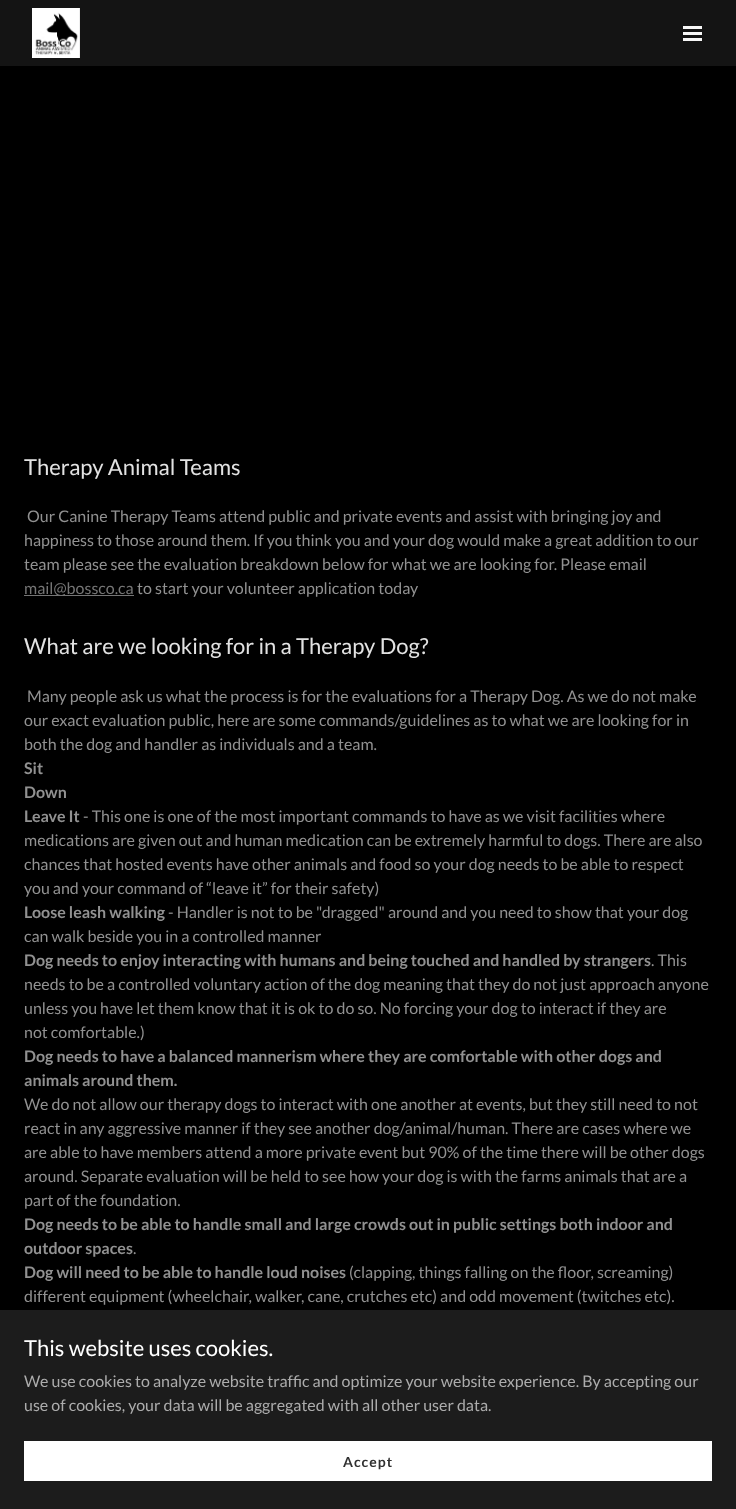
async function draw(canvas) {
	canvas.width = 736;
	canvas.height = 1509;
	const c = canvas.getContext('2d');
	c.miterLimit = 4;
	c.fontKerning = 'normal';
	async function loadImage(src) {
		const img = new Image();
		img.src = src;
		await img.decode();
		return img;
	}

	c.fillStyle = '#000';
	c.fillRect(0, 0, 736, 1509);
	c.fillStyle = '#141414';
	c.fillRect(0, 0, 736, 66);
	c.drawImage(await loadImage('img1.png'), 32, 8, 48, 50);
	for (const [x, y, w, h, color] of [
		[683, 26, 19, 3, '#f7f7f7'],
		[683, 32, 19, 3, '#f7f7f7'],
		[683, 38, 19, 3, '#f7f7f7'],
	]) {
		c.fillStyle = color;
		c.fillRect(x, y, w, h);
	}
	c.font = '22px Lato';
	c.fillStyle = '#e2e2e2';
	c.fillText('Therapy Animal Teams', 24, 475);
	c.font = '16px Lato';
	c.fillStyle = '#919191';
	for (const [text, x, y] of [
		['Our Canine Therapy Teams attend public and private events and assist with bringing joy and', 27, 522],
		['happiness to those around them. If you think you and your dog would make a great addition to our', 24, 546],
		['team please see the evaluation breakdown below for what we are looking for. Please email', 24, 570],
	]) {
		c.fillText(text, x, y);
	}
	c.fillStyle = '#757575';
	c.fillRect(24, 595, 110, 1);
	c.fillText('mail@bossco.ca', 24, 594);
	c.fillStyle = '#919191';
	c.fillText('to start your volunteer application today', 137, 594);
	c.font = '22px Lato';
	c.fillStyle = '#e2e2e2';
	c.fillText('What are we looking for in a Therapy Dog?', 24, 654);
	c.font = '16px Lato';
	c.fillStyle = '#919191';
	for (const [text, x, y] of [
		['Many people ask us what the process is for the evaluations for a Therapy Dog. As we do not make', 27, 702],
		['our exact evaluation public, here are some commands/guidelines as to what we are looking for in', 24, 726],
		['both the dog and handler as individuals and a team.', 24, 750],
	]) {
		c.fillText(text, x, y);
	}
	c.font = 'bold 16px Lato';
	for (const [text, x, y] of [
		['Sit', 24, 774],
		['Down', 24, 798],
		['Leave It', 24, 822],
	]) {
		c.fillText(text, x, y);
	}
	c.font = '16px Lato';
	for (const [text, x, y] of [
		['- This one is one of the most important commands to have as we visit facilities where', 83, 822],
		['medications are given out and human medication can be extremely harmful to dogs. There are also', 24, 846],
		['chances that hosted events have other animals and food so your dog needs to be able to respect', 24, 870],
		['you and your command of “leave it” for their safety)', 24, 894],
	]) {
		c.fillText(text, x, y);
	}
	c.font = 'bold 16px Lato';
	c.fillText('Loose leash walking', 24, 918);
	c.font = '16px Lato';
	c.fillText('- Handler is not to be "dragged" around and you need to show that your dog', 168, 918);
	c.fillText('can walk beside you in a controlled manner', 24, 942);
	c.font = 'bold 16px Lato';
	c.fillText('Dog needs to enjoy interacting with humans and being touched and handled by strangers', 24, 966);
	c.font = '16px Lato';
	for (const [text, x, y] of [
		['. This', 651, 966],
		['needs to be a controlled voluntary action of the dog meaning that they do not just approach anyone', 24, 990],
		['unless you have let them know that it is ok to do so. No forcing your dog to interact if they are', 24, 1014],
		['not comfortable.)', 24, 1038],
	]) {
		c.fillText(text, x, y);
	}
	c.font = 'bold 16px Lato';
	c.fillText('Dog needs to have a balanced mannerism where they are comfortable with other dogs and', 24, 1062);
	c.fillText('animals around them.', 24, 1086);
	c.font = '16px Lato';
	for (const [text, x, y] of [
		['We do not allow our therapy dogs to interact with one another at events, but they still need to not', 24, 1110],
		['react in any aggressive manner if they see another dog/animal/human. There are cases where we', 24, 1134],
		['are able to have members attend a more private event but 90% of the time there will be other dogs', 24, 1158],
		['around. Separate evaluation will be held to see how your dog is with the farms animals that are a', 24, 1182],
		['part of the foundation.', 24, 1206],
	]) {
		c.fillText(text, x, y);
	}
	c.font = 'bold 16px Lato';
	c.fillText('Dog needs to be able to handle small and large crowds out in public settings both indoor and', 24, 1230);
	c.fillText('outdoor spaces', 24, 1254);
	c.font = '16px Lato';
	c.fillText('.', 133, 1254);
	c.font = 'bold 16px Lato';
	c.fillText('Dog will need to be able to handle loud noises', 24, 1278);
	c.font = '16px Lato';
	c.fillText('(clapping, things falling on the floor, screaming)', 349, 1278);
	c.fillText('different equipment (wheelchair, walker, cane, crutches etc) and odd movement (twitches etc).', 24, 1302);
	c.fillStyle = '#1c1c1c';
	c.fillRect(0, 1310, 736, 199);
	c.font = '22px Lato';
	c.fillStyle = '#fff';
	c.fillText('This website uses cookies.', 24, 1356);
	c.font = '16px Lato';
	c.fillStyle = '#acacac';
	c.fillText('We use cookies to analyze website traffic and optimize your website experience. By accepting our', 24, 1387);
	c.fillText('use of cookies, your data will be aggregated with all other user data.', 24, 1411);
	c.fillStyle = '#fff';
	c.fillRect(24, 1441, 688, 40);
	c.letterSpacing = '1px';
	c.font = 'bold 14px Lato';
	c.fillStyle = '#303030';
	c.fillText('Accept', 343, 1467);
}

draw(document.querySelector('canvas'));
